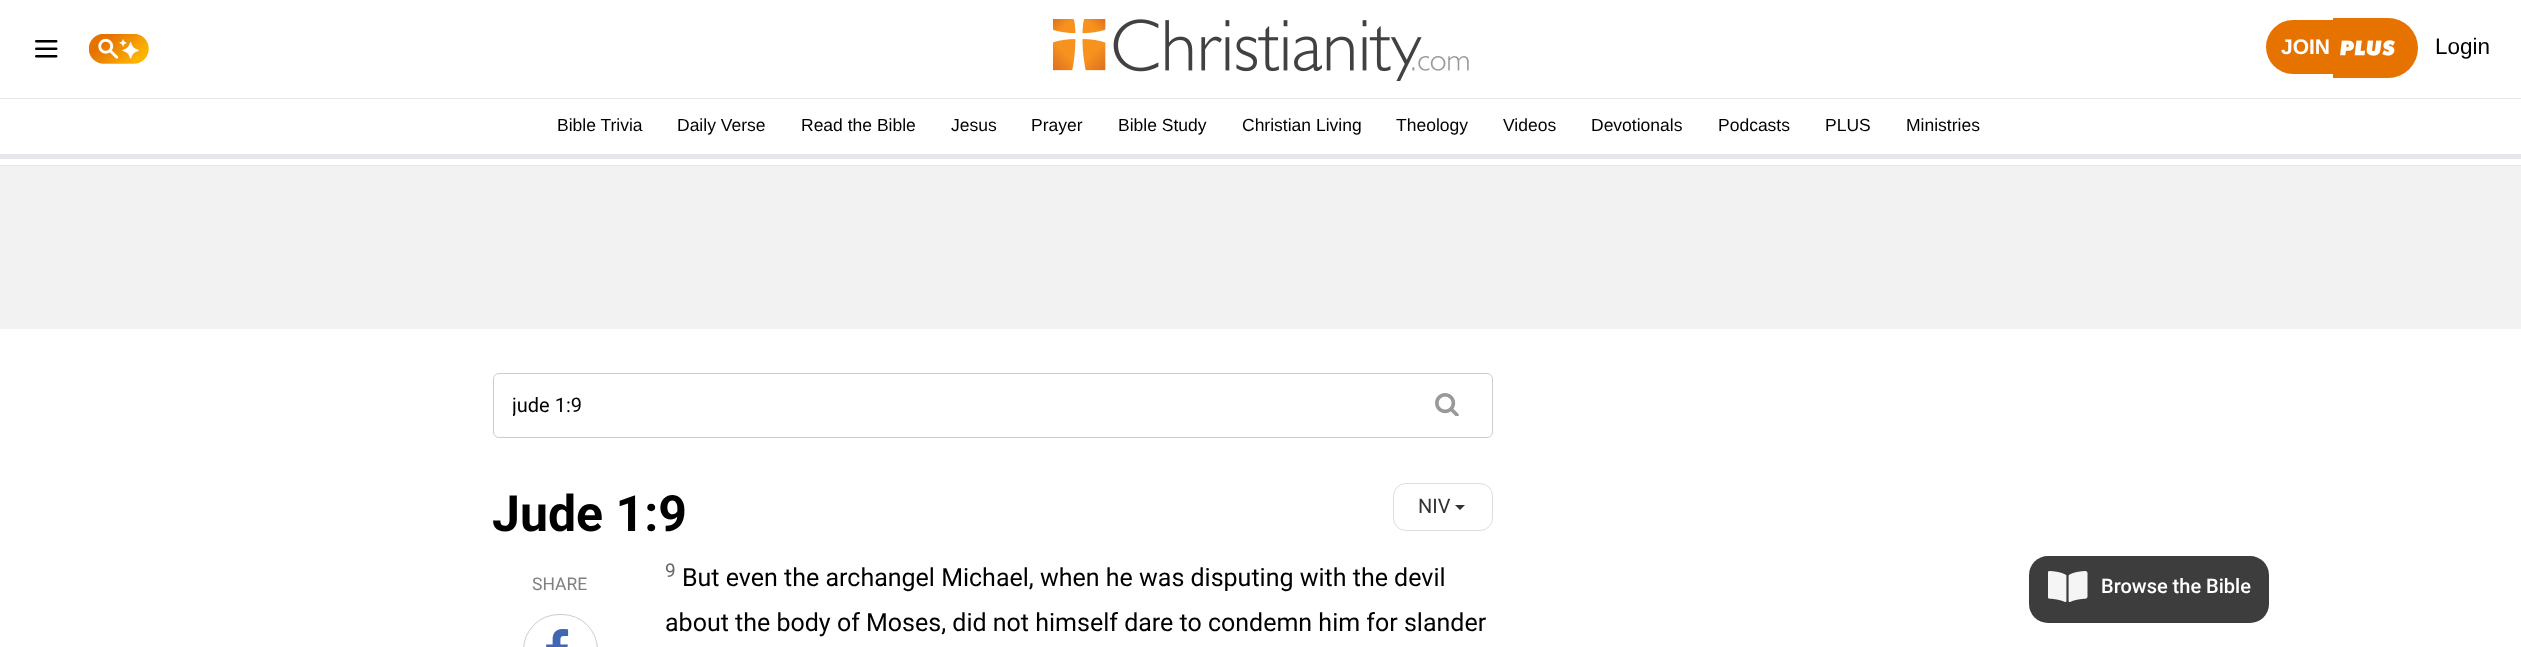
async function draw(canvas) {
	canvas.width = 2521;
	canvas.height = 647;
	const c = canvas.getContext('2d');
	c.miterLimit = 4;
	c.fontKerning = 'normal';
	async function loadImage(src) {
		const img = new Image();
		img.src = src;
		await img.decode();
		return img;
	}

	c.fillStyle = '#fff';
	c.fillRect(0, 0, 2521, 647);
	c.fillStyle = '#e6e6e6';
	c.fillRect(0, 165, 2521, 1);
	c.fillRect(0, 98, 2521, 1);
	c.drawImage(await loadImage('img1.png'), 35, 40, 23, 18);
	c.drawImage(await loadImage('img2.png'), 89, 34, 60, 30);
	c.drawImage(await loadImage('img3.png'), 1053, 19, 416, 62);
	c.fillStyle = '#e67300';
	c.beginPath();
	c.roundRect(2266, 20, 72, 54, [27, 0, 0, 27]);
	c.fill();
	c.beginPath();
	c.roundRect(2333, 18, 85, 60, [0, 30, 30, 0]);
	c.fill();
	c.font = 'bold 21px Liberation Sans';
	c.fillStyle = '#fff';
	c.fillText('JOIN', 2281, 54);
	c.drawImage(await loadImage('img4.png'), 2340, 40, 55, 16);
	c.font = '22.5px Liberation Sans';
	c.fillStyle = '#000';
	c.fillText('Login', 2435, 54);
	c.fillStyle = '#e5e7eb';
	c.fillRect(0, 154, 2521, 5);
	c.font = '17.5px Liberation Sans';
	c.fillStyle = '#000';
	for (const [text, x, y] of [
		['Bible Trivia', 557, 131],
		['Daily Verse', 677, 131],
		['Read the Bible', 801, 131],
		['Jesus', 951, 131],
		['Prayer', 1031, 131],
		['Bible Study', 1118, 131],
		['Christian Living', 1242, 131],
		['Theology', 1396, 131],
		['Videos', 1503, 131],
		['Devotionals', 1591, 131],
		['Podcasts', 1718, 131],
		['PLUS', 1825, 131],
		['Ministries', 1906, 131],
	]) {
		c.fillText(text, x, y);
	}
	c.fillStyle = '#f2f2f2';
	c.fillRect(0, 166, 2521, 163);
	c.beginPath();
	c.roundRect(493.5, 373.5, 999, 64, 5.5);
	c.strokeStyle = '#ccc';
	c.stroke();
	c.fillStyle = '#fff';
	c.beginPath();
	c.roundRect(494, 374, 914, 62, 6);
	c.fill();
	c.save();
	c.beginPath();
	c.rect(513, 393, 876, 23);
	c.clip();
	c.font = '20px Roboto';
	c.fillStyle = '#000';
	c.fillText('jude 1:9', 512, 412);
	c.restore();
	c.drawImage(await loadImage('img5.png'), 1435, 393, 24, 23);
	c.font = 'bold 50px Roboto';
	c.fillStyle = '#000';
	c.fillText('Jude 1:9', 492, 531);
	c.beginPath();
	c.roundRect(1393.5, 483.5, 99, 47, 12.5);
	c.strokeStyle = '#ddd';
	c.stroke();
	c.font = '20px Roboto';
	c.fillStyle = '#333';
	c.fillText('NIV', 1418, 513);
	c.beginPath();
	c.moveTo(1455, 505);
	c.lineTo(1465, 505);
	c.lineTo(1460, 510);
	c.closePath();
	c.fill();
	c.font = '17.5px Roboto';
	c.fillStyle = '#808080';
	c.fillText('SHARE', 532, 590);
	c.beginPath();
	c.roundRect(523.5, 614.5, 74, 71, 37);
	c.strokeStyle = '#ccc';
	c.stroke();
	c.drawImage(await loadImage('img6.png'), 546, 629, 23, 18);
	c.font = '19px Roboto';
	c.fillStyle = '#666';
	c.fillText('9', 665, 577);
	c.font = '25px Roboto';
	c.fillStyle = '#000';
	c.fillText('But even the archangel Michael, when he was disputing with the devil', 682, 586);
	c.fillText('about the body of Moses, did not himself dare to condemn him for slander', 665, 631);
	c.fillStyle = '#3d3d3d';
	c.beginPath();
	c.roundRect(2029, 556, 240, 67, 19);
	c.fill();
	c.drawImage(await loadImage('img7.png'), 2048, 571, 40, 31);
	c.font = '500 20px Roboto';
	c.fillStyle = '#fff';
	c.fillText('Browse the Bible', 2101, 593);
}

draw(document.querySelector('canvas'));
